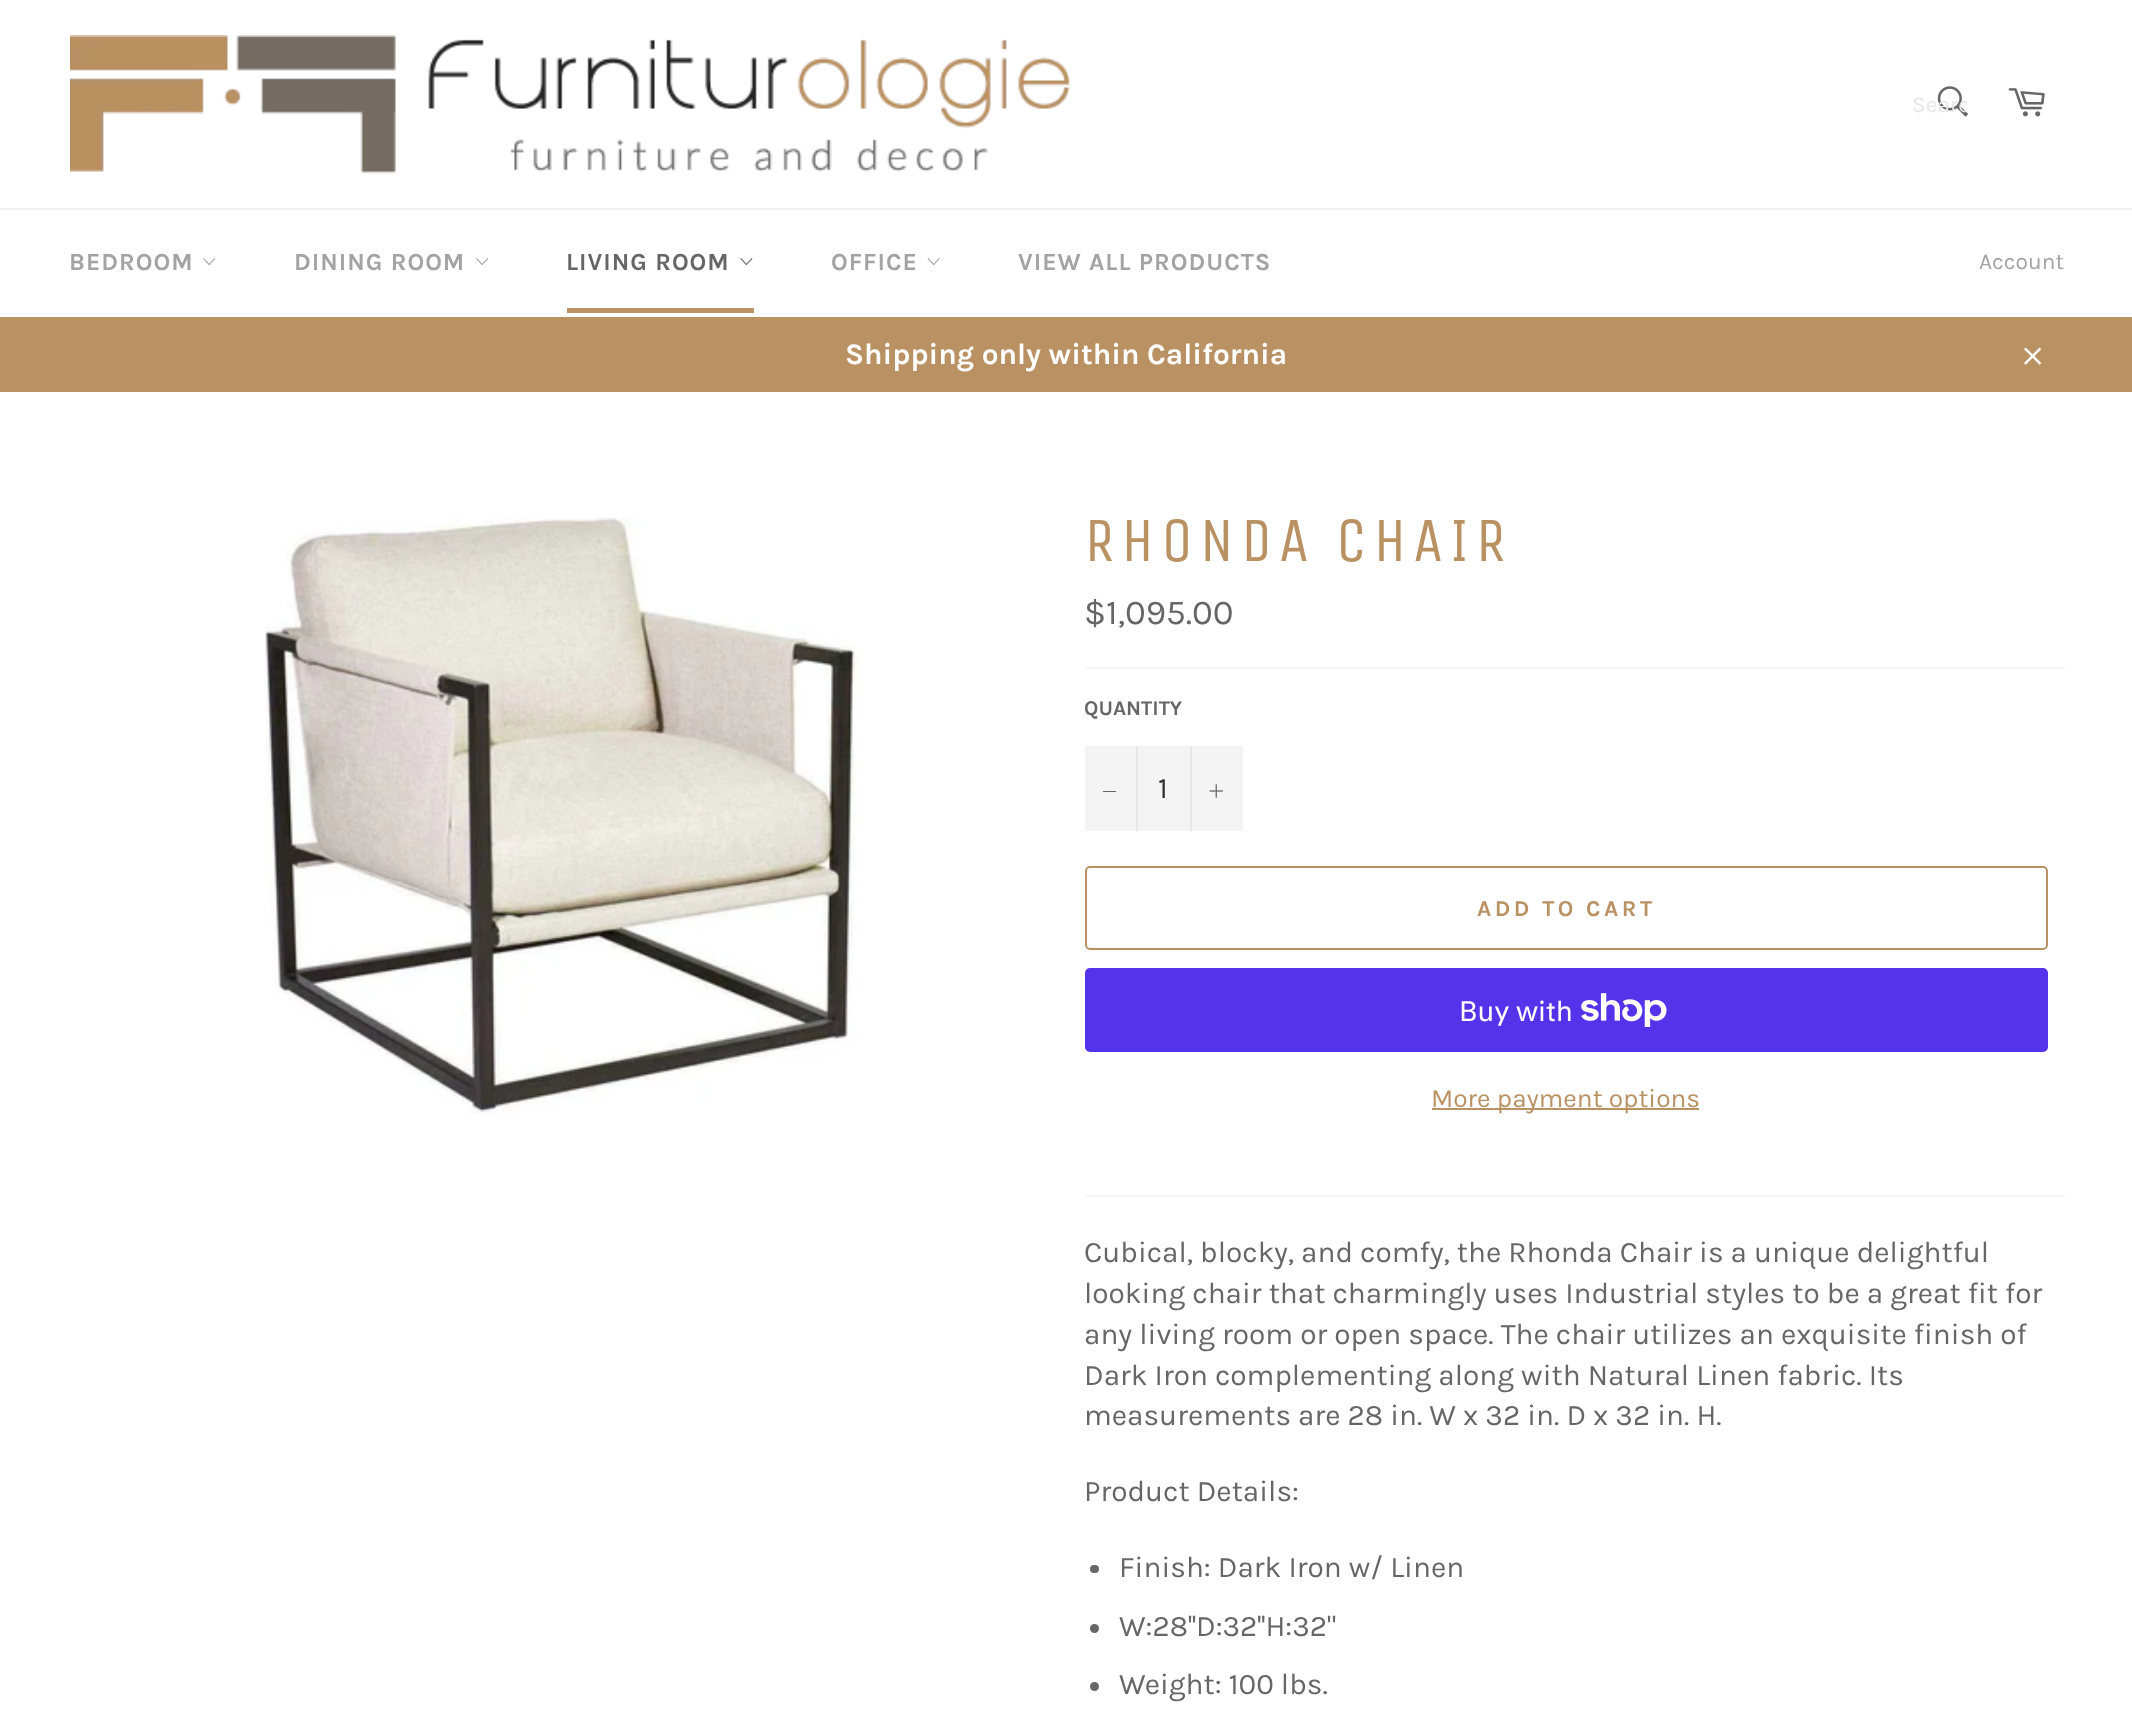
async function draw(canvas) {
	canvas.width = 2132;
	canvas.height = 1718;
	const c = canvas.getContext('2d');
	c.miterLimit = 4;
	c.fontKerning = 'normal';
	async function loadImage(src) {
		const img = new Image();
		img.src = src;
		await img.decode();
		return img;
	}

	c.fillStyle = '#fff';
	c.fillRect(0, 0, 2132, 1718);
	c.drawImage(await loadImage('img1.png'), 70, 35, 1000, 139);
	c.drawImage(await loadImage('img2.png'), 1937, 86, 32, 31);
	c.save();
	c.beginPath();
	c.rect(1911, 91, 56, 26);
	c.clip();
	c.font = '22.75px Karla';
	c.fillStyle = '#e7e7e7';
	c.fillText('Searc', 1912, 112);
	c.restore();
	c.drawImage(await loadImage('img3.png'), 2008, 88, 37, 29);
	c.fillStyle = '#f2f2f2';
	c.fillRect(0, 208, 2132, 2);
	c.letterSpacing = '1px';
	c.font = 'bold 24.5px Karla';
	c.fillStyle = '#a3a3a3';
	c.fillText('BEDROOM', 69, 270);
	c.drawImage(await loadImage('img4.png'), 203, 258, 13, 8);
	c.fillText('DINING ROOM', 294, 270);
	c.drawImage(await loadImage('img4.png'), 476, 258, 13, 8);
	c.fillStyle = '#666';
	c.fillText('LIVING ROOM', 566, 270);
	c.drawImage(await loadImage('img5.png'), 740, 258, 13, 8);
	c.fillStyle = '#b99162';
	c.fillRect(567, 308, 187, 5);
	c.fillStyle = '#a3a3a3';
	c.fillText('OFFICE', 831, 270);
	c.drawImage(await loadImage('img6.png'), 927, 258, 13, 8);
	c.fillText('VIEW ALL PRODUCTS', 1018, 270);
	c.letterSpacing = '0px';
	c.font = '22.75px Karla';
	c.fillText('Account', 1979, 269);
	c.fillStyle = '#b99162';
	c.fillRect(0, 317, 2132, 75);
	c.font = 'bold 29.75px Karla';
	c.fillStyle = '#fff';
	c.fillText('Shipping only within California', 845, 364);
	c.drawImage(await loadImage('img7.png'), 2024, 347, 18, 18);
	c.drawImage(await loadImage('img8.png'), 263, 517, 598, 597);
	c.letterSpacing = '6.25px';
	c.font = '63px Unica One';
	c.fillStyle = '#b99162';
	c.fillText('RHONDA CHAIR', 1084, 561);
	c.letterSpacing = '0px';
	c.font = '35px Karla';
	c.fillStyle = '#666';
	c.fillText('$1,095.00', 1084, 624);
	c.fillStyle = '#f7f7f7';
	c.fillRect(1085, 667, 980, 2);
	c.font = 'bold 21px Karla';
	c.fillStyle = '#666';
	c.fillText('QUANTITY', 1084, 715);
	for (const [x, y, w, h, color] of [
		[1085, 746, 158, 85, '#f4f4f4'],
		[1136, 746, 2, 85, '#e7e7e7'],
		[1103, 791, 13, 1, '#666'],
	]) {
		c.fillStyle = color;
		c.fillRect(x, y, w, h);
	}
	c.font = '29.75px Karla';
	c.fillStyle = '#333';
	c.fillText('1', 1158, 798);
	c.fillStyle = '#e7e7e7';
	c.fillRect(1190, 746, 2, 85);
	c.drawImage(await loadImage('img9.png'), 1209, 784, 14, 14);
	c.beginPath();
	c.roundRect(1086, 867, 961, 82, 4);
	c.strokeStyle = '#b99162';
	c.lineWidth = 2;
	c.stroke();
	c.letterSpacing = '3.5px';
	c.font = 'bold 22.75px Karla';
	c.fillStyle = '#b99162';
	c.fillText('ADD TO CART', 1477, 916);
	c.fillStyle = '#5433eb';
	c.beginPath();
	c.roundRect(1085, 968, 963, 84, 5);
	c.fill();
	c.letterSpacing = '0px';
	c.font = '28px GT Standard';
	c.fillStyle = '#fff';
	c.fillText('Buy with', 1459, 1021);
	c.drawImage(await loadImage('img10.png'), 1581, 993, 86, 34);
	c.fillStyle = '#b99162';
	c.fillRect(1432, 1108, 267, 2);
	c.font = '26.25px Karla';
	c.fillText('More payment options', 1431, 1107);
	c.fillStyle = '#f7f7f7';
	c.fillRect(1085, 1195, 980, 2);
	c.font = '29.75px Karla';
	c.fillStyle = '#666';
	for (const [text, x, y] of [
		['Cubical, blocky, and comfy, the Rhonda Chair is a unique delightful', 1084, 1262],
		['looking chair that charmingly uses Industrial styles to be a great fit for', 1084, 1303],
		['any living room or open space. The chair utilizes an exquisite finish of', 1084, 1344],
		['Dark Iron complementing along with Natural Linen fabric. Its', 1084, 1385],
		['measurements are 28 in. W x 32 in. D x 32 in. H.', 1084, 1425],
		['Product Details:', 1084, 1501],
	]) {
		c.fillText(text, x, y);
	}
	c.beginPath();
	c.roundRect(1090, 1565, 9, 8, 4);
	c.fill();
	c.fillText('Finish: Dark Iron w/ Linen', 1119, 1577);
	c.beginPath();
	c.arc(1094.5, 1628.5, 4.5, 0, 2 * Math.PI);
	c.fill();
	c.fillText('W:28\'\'D:32\'\'H:32"', 1119, 1636);
	c.beginPath();
	c.arc(1094.5, 1686.5, 4.5, 0, 2 * Math.PI);
	c.fill();
	c.fillText('Weight: 100 lbs.', 1119, 1694);
}

draw(document.querySelector('canvas'));
